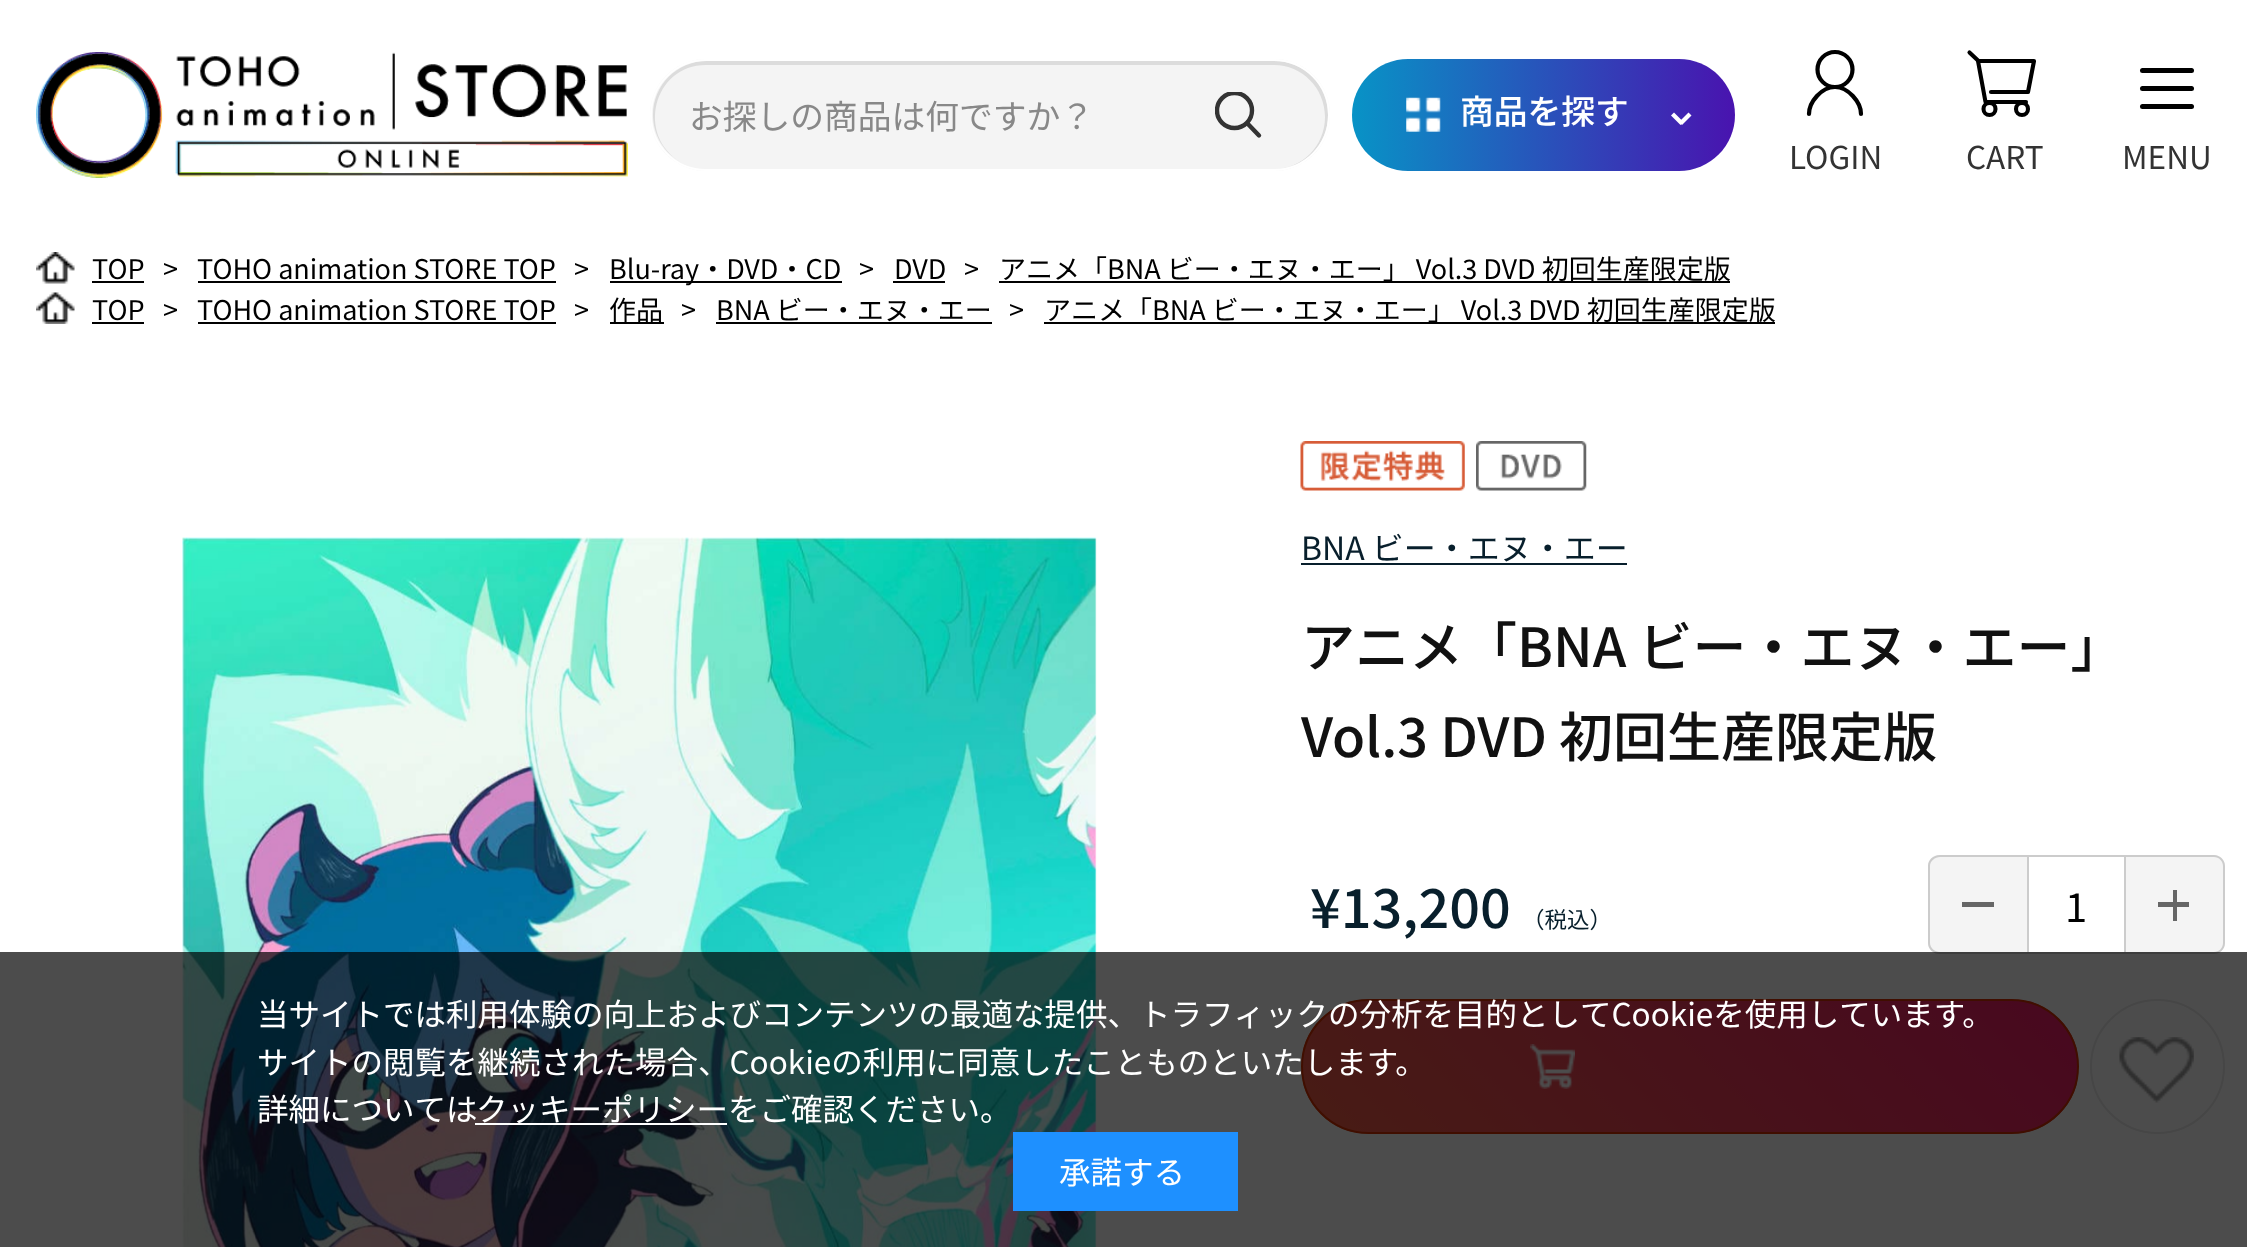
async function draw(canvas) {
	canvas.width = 2247;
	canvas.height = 1247;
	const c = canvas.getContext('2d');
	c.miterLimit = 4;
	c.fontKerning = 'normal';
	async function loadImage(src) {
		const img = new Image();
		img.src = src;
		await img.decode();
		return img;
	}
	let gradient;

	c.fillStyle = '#fff';
	c.fillRect(0, 0, 2247, 1247);
	c.drawImage(await loadImage('img1.png'), 36, 52, 592, 126);
	c.fillStyle = '#f4f4f4';
	c.beginPath();
	c.roundRect(650, 59, 680, 112, 56);
	c.fill();
	c.fillStyle = '#dcdcdc';
	c.beginPath();
	c.moveTo(706, 65);
	c.lineTo(1274, 65);
	c.bezierCurveTo(1302, 65, 1325, 88, 1325, 117);
	c.bezierCurveTo(1325, 146, 1302, 169, 1274, 169);
	c.bezierCurveTo(1304, 169, 1328, 145, 1328, 115);
	c.bezierCurveTo(1328, 85, 1304, 61, 1274, 61);
	c.lineTo(707, 61);
	c.bezierCurveTo(677, 61, 653, 85, 653, 115);
	c.bezierCurveTo(653, 135, 664, 153, 681, 162);
	c.bezierCurveTo(636, 136, 653, 65, 706, 65);
	c.closePath();
	c.fill();
	c.beginPath();
	c.roundRect(651, 60, 678, 110, 55);
	c.strokeStyle = '#fff';
	c.lineWidth = 2;
	c.stroke();
	c.font = '100 33.75px Noto Sans JP';
	c.fillStyle = '#888';
	c.fillText('お探しの商品は何ですか？', 689, 129);
	c.save();
	c.beginPath();
	c.rect(1215, 92, 47, 48);
	c.clip();
	c.beginPath();
	c.arc(1234.5, 110.5, 17.5, 0, 2 * Math.PI);
	c.strokeStyle = '#333';
	c.lineWidth = 4.4;
	c.stroke();
	c.restore();
	c.beginPath();
	c.moveTo(1247.5, 123.5);
	c.lineTo(1259, 135.5);
	c.strokeStyle = '#333';
	c.lineWidth = 4.4;
	c.lineCap = 'round';
	c.lineJoin = 'round';
	c.stroke();
	gradient = c.createLinearGradient(1352, 115, 1735, 115);
	gradient.addColorStop(0, '#0893c6');
	gradient.addColorStop(1, '#4913af');
	c.fillStyle = gradient;
	c.beginPath();
	c.roundRect(1352, 59, 383, 112, 56);
	c.fill();
	c.drawImage(await loadImage('img2.png'), 1406, 97, 35, 35);
	c.font = '500 33.75px Noto Sans JP';
	c.fillStyle = '#fff';
	c.fillText('商品を探す', 1460, 124);
	c.beginPath();
	c.moveTo(1688.5, 112.5);
	c.lineTo(1691.5, 115.5);
	c.lineTo(1682, 125);
	c.lineTo(1679, 122);
	c.closePath();
	c.fill();
	c.beginPath();
	c.moveTo(1674, 112.5);
	c.lineTo(1683.5, 122);
	c.lineTo(1680.5, 125);
	c.lineTo(1671, 115.5);
	c.closePath();
	c.fill();
	c.beginPath();
	c.arc(1835, 69.5, 17.5, 0, 2 * Math.PI);
	c.strokeStyle = '#000';
	c.lineWidth = 4.2;
	c.stroke();
	c.beginPath();
	c.moveTo(1861, 114);
	c.bezierCurveTo(1861, 102, 1848, 87, 1835, 87);
	c.bezierCurveTo(1821.5, 87, 1809, 102, 1809, 114);
	c.stroke();
	c.font = '100 31.5px Noto Sans JP';
	c.fillStyle = '#333';
	c.fillText('LOGIN', 1789, 169);
	c.beginPath();
	c.moveTo(2026, 102);
	c.lineTo(1985.5, 102);
	c.lineTo(1978, 61);
	c.lineTo(2034, 61);
	c.lineTo(2028, 92);
	c.lineTo(1991, 92);
	c.lineWidth = 4.1;
	c.stroke();
	c.beginPath();
	c.moveTo(1978, 60.5);
	c.lineTo(1969.5, 52.5);
	c.stroke();
	c.beginPath();
	c.arc(1989.5, 109, 6, 0, 2 * Math.PI);
	c.stroke();
	c.beginPath();
	c.arc(2022, 109, 6, 0, 2 * Math.PI);
	c.stroke();
	c.fillText('CART', 1966, 169);
	c.fillStyle = '#000';
	c.beginPath();
	c.roundRect(2140, 68, 54, 5, 2.5);
	c.fill();
	c.beginPath();
	c.roundRect(2140, 86, 54, 5, 2.5);
	c.fill();
	c.beginPath();
	c.roundRect(2140, 104, 54, 5, 2.5);
	c.fill();
	c.fillStyle = '#333';
	c.fillText('MENU', 2122, 169);
	c.drawImage(await loadImage('img3.png'), 36, 252, 39, 32);
	c.font = '100 27px Noto Sans JP';
	c.fillStyle = '#000';
	c.fillText('TOP', 92, 279);
	c.fillRect(92, 281, 52, 2);
	c.fillText('>', 163, 279);
	c.fillText('TOHO animation STORE TOP', 197, 279);
	c.fillRect(198, 281, 358, 2);
	c.fillText('>', 574, 279);
	c.fillRect(610, 281, 232, 2);
	for (const [text, x, y] of [
		['Blu-ray・DVD・CD', 609, 279],
		['>', 859, 279],
		['DVD', 894, 279],
	]) {
		c.fillText(text, x, y);
	}
	c.fillRect(893, 281, 52, 2);
	c.fillText('>', 964, 279);
	c.fillRect(999, 281, 731, 2);
	c.fillText('アニメ「BNA ビー・エヌ・エー」 Vol.3 DVD 初回生産限定版', 999, 279);
	c.drawImage(await loadImage('img4.png'), 36, 292, 39, 32);
	c.fillText('TOP', 92, 320);
	c.fillRect(92, 322, 52, 2);
	c.fillText('>', 163, 320);
	c.fillText('TOHO animation STORE TOP', 197, 320);
	c.fillRect(198, 322, 358, 2);
	c.fillText('>', 574, 320);
	c.fillRect(610, 322, 54, 2);
	for (const [text, x, y] of [
		['作品', 609, 320],
		['>', 681, 320],
		['BNA ビー・エヌ・エー', 716, 320],
	]) {
		c.fillText(text, x, y);
	}
	c.fillRect(716, 322, 276, 2);
	c.fillText('>', 1009, 320);
	c.fillRect(1044, 322, 731, 2);
	c.fillText('アニメ「BNA ビー・エヌ・エー」 Vol.3 DVD 初回生産限定版', 1044, 320);
	c.drawImage(await loadImage('img5.png'), 182, 537, 915, 710);
	c.drawImage(await loadImage('img6.png'), 1300, 441, 165, 50);
	c.drawImage(await loadImage('img7.png'), 1476, 441, 111, 50);
	c.font = '100 32px Noto Sans JP';
	c.fillStyle = '#081f2c';
	c.fillText('BNA ビー・エヌ・エー', 1301, 560);
	c.fillRect(1301, 563, 326, 2);
	c.font = '500 54px Noto Sans JP';
	c.fillStyle = '#111';
	c.fillText('アニメ「BNA ビー・エヌ・エー」', 1301, 667);
	c.fillText('Vol.3 DVD 初回生産限定版', 1301, 757);
	c.fillStyle = '#081f2c';
	c.fillText('¥13,200', 1310, 928);
	c.font = '100 22.5px Noto Sans JP';
	c.fillText('（税込）', 1522, 928);
	c.fillStyle = '#f4f4f4';
	c.beginPath();
	c.roundRect(1928, 855, 99, 99, [11, 0, 0, 11]);
	c.fill();
	c.fillStyle = '#ccc';
	c.beginPath();
	c.moveTo(1940, 855);
	c.lineTo(2027, 855);
	c.lineTo(2027, 954);
	c.lineTo(1940, 954);
	c.bezierCurveTo(1933, 954, 1928, 949, 1928, 943);
	c.lineTo(1928, 866);
	c.bezierCurveTo(1928, 860, 1933, 855, 1940, 855);
	c.closePath();
	c.moveTo(1940, 857);
	c.lineTo(2027, 857);
	c.lineTo(2027, 952);
	c.lineTo(1940, 952);
	c.bezierCurveTo(1935, 952, 1930, 948, 1930, 943);
	c.lineTo(1930, 866);
	c.bezierCurveTo(1930, 861, 1935, 857, 1940, 857);
	c.closePath();
	c.fill('evenodd');
	c.fillStyle = '#666';
	c.fillRect(1962, 902, 32, 5);
	c.strokeStyle = '#ccc';
	c.lineWidth = 2;
	c.lineJoin = 'miter';
	c.strokeRect(2028, 856, 97, 97);
	c.font = '100 40px Noto Sans JP';
	c.fillStyle = '#000';
	c.fillText('1', 2065, 922);
	c.fillStyle = '#f4f4f4';
	c.beginPath();
	c.roundRect(2126, 855, 99, 99, [0, 11, 11, 0]);
	c.fill();
	c.fillStyle = '#ccc';
	c.beginPath();
	c.moveTo(2126, 855);
	c.lineTo(2214, 855);
	c.bezierCurveTo(2220, 855, 2225, 860, 2225, 866);
	c.lineTo(2225, 943);
	c.bezierCurveTo(2225, 949, 2220, 954, 2214, 954);
	c.lineTo(2126, 954);
	c.closePath();
	c.moveTo(2126, 857);
	c.lineTo(2214, 857);
	c.bezierCurveTo(2219, 857, 2223, 861, 2223, 866);
	c.lineTo(2223, 943);
	c.bezierCurveTo(2223, 948, 2219, 952, 2214, 952);
	c.lineTo(2126, 952);
	c.closePath();
	c.fill('evenodd');
	c.fillStyle = '#666';
	c.fillRect(2158, 902, 31, 5);
	c.fillRect(2173, 890, 4, 31);
	c.save();
	c.beginPath();
	c.roundRect(1301, 999, 778, 135, 67.5);
	c.clip();
	gradient = c.createLinearGradient(1464, 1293, 1916, 840);
	gradient.addColorStop(0, '#f05e47');
	gradient.addColorStop(1, '#f01c6a');
	c.fillStyle = gradient;
	c.fillRect(1303, 1001, 774, 131);
	c.restore();
	c.beginPath();
	c.roundRect(1302, 1000, 776, 133, 66.5);
	c.strokeStyle = '#d53100';
	c.stroke();
	c.drawImage(await loadImage('img8.png'), 1530, 1044, 45, 45);
	c.beginPath();
	c.arc(2157.5, 1066.5, 66.5, 0, 2 * Math.PI);
	c.strokeStyle = '#eaeaea';
	c.stroke();
	c.drawImage(await loadImage('img9.png'), 2119, 1037, 75, 66);
	c.fillStyle = '#000000b3';
	c.fillRect(0, 952, 2247, 295);
	c.font = '100 31.5px Noto Sans JP';
	c.fillStyle = '#fff';
	for (const [text, x, y] of [
		['当サイトでは利用体験の向上およびコンテンツの最適な提供、トラフィックの分析を目的としてCookieを使用しています。', 257, 1026],
		['サイトの閲覧を継続された場合、Cookieの利用に同意したことものといたします。', 257, 1074],
		['詳細については', 257, 1121],
	]) {
		c.fillText(text, x, y);
	}
	c.fillRect(475, 1123, 252, 2);
	c.fillText('クッキーポリシーをご確認ください。', 476, 1121);
	c.fillStyle = '#1e90ff';
	c.fillRect(1013, 1132, 225, 79);
	c.fillStyle = '#fff';
	c.fillText('承諾する', 1059, 1184);
}

draw(document.querySelector('canvas'));
